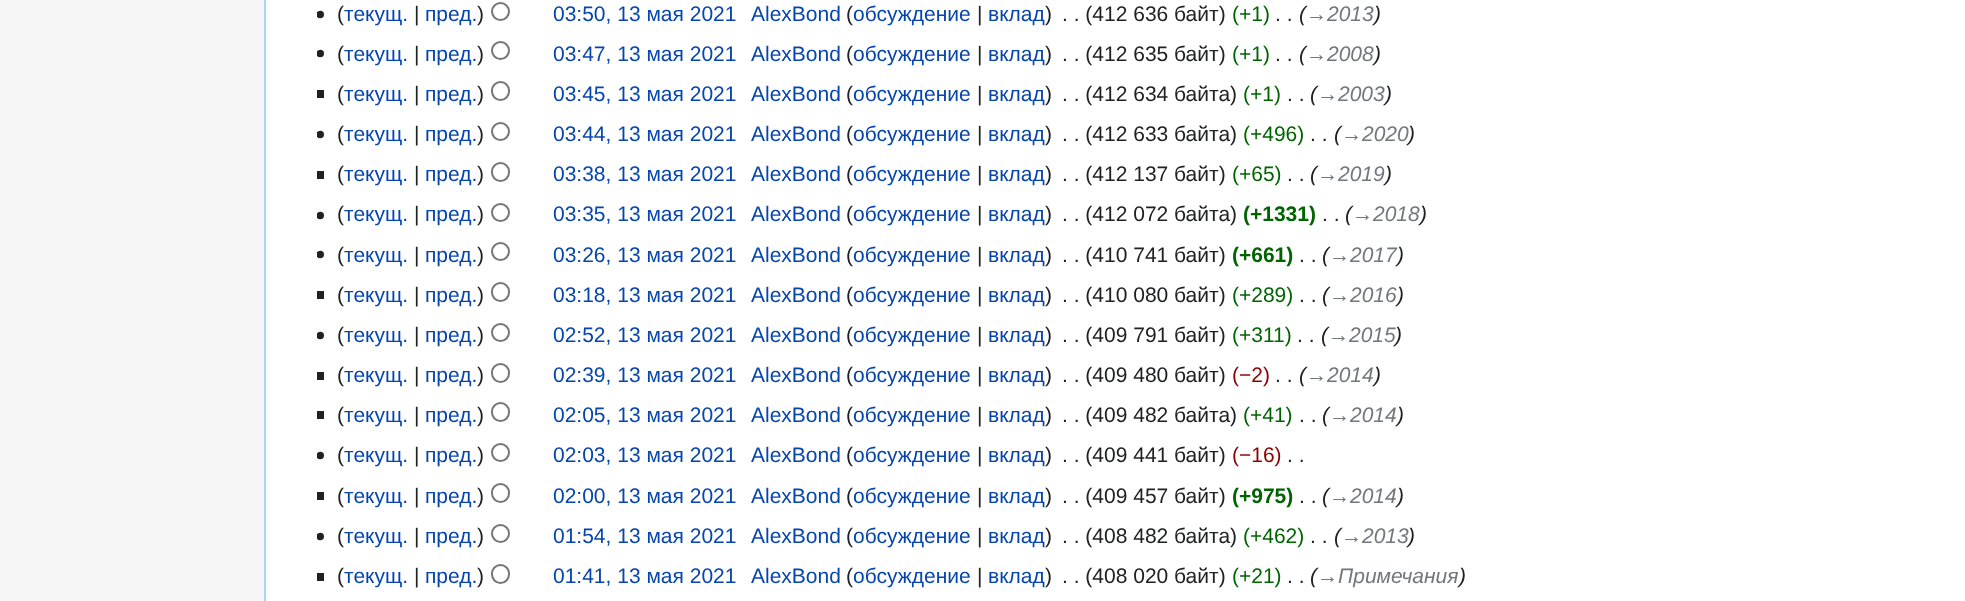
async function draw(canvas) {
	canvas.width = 1965;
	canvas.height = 601;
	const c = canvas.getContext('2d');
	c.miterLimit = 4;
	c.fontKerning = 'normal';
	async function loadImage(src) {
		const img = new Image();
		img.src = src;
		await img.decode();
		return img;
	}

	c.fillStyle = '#f6f6f6';
	c.fillRect(0, 0, 1965, 601);
	c.fillStyle = '#fff';
	c.fillRect(266, 0, 1699, 601);
	c.fillStyle = '#a7d7f9';
	c.fillRect(264, 0, 2, 601);
	c.drawImage(await loadImage('img1.png'), 317, 10, 7, 9);
	c.font = '21px Liberation Sans';
	c.fillStyle = '#202122';
	c.fillText('(', 337, 21);
	c.fillStyle = '#0645ad';
	c.fillText('текущ.', 344, 21);
	c.fillStyle = '#202122';
	c.fillText('|', 414, 21);
	c.fillStyle = '#0645ad';
	c.fillText('пред.', 425, 21);
	c.fillStyle = '#202122';
	c.fillText(')', 477, 21);
	c.beginPath();
	c.arc(500.5, 11.5, 8.5, 0, 2 * Math.PI);
	c.strokeStyle = '#767676';
	c.lineWidth = 2;
	c.stroke();
	c.fillStyle = '#0645ad';
	c.fillText('03:50, 13 мая 2021', 553, 21);
	c.fillText('AlexBond', 751, 21);
	c.fillStyle = '#202122';
	c.fillText('(', 846, 21);
	c.fillStyle = '#0645ad';
	c.fillText('обсуждение', 853, 21);
	c.fillStyle = '#202122';
	c.fillText('|', 977, 21);
	c.fillStyle = '#0645ad';
	c.fillText('вклад', 988, 21);
	c.fillStyle = '#202122';
	c.fillText(')', 1045, 21);
	c.fillText('. . (412 636 байт)', 1062, 21);
	c.fillStyle = '#006400';
	c.fillText('(+1)', 1232, 21);
	c.fillStyle = '#202122';
	c.fillText('. .', 1275, 21);
	c.font = 'italic 21px Liberation Sans';
	c.fillText('(', 1299, 21);
	c.fillStyle = '#72777d';
	c.fillText('→2013', 1306, 21);
	c.fillStyle = '#202122';
	c.fillText(')', 1374, 21);
	c.drawImage(await loadImage('img1.png'), 317, 49, 7, 9);
	c.font = '21px Liberation Sans';
	c.fillText('(', 337, 61);
	c.fillStyle = '#0645ad';
	c.fillText('текущ.', 344, 61);
	c.fillStyle = '#202122';
	c.fillText('|', 414, 61);
	c.fillStyle = '#0645ad';
	c.fillText('пред.', 425, 61);
	c.fillStyle = '#202122';
	c.fillText(')', 477, 61);
	c.beginPath();
	c.arc(500.5, 50.5, 8.5, 0, 2 * Math.PI);
	c.stroke();
	c.fillStyle = '#0645ad';
	c.fillText('03:47, 13 мая 2021', 553, 61);
	c.fillText('AlexBond', 751, 61);
	c.fillStyle = '#202122';
	c.fillText('(', 846, 61);
	c.fillStyle = '#0645ad';
	c.fillText('обсуждение', 853, 61);
	c.fillStyle = '#202122';
	c.fillText('|', 977, 61);
	c.fillStyle = '#0645ad';
	c.fillText('вклад', 988, 61);
	c.fillStyle = '#202122';
	c.fillText(')', 1045, 61);
	c.fillText('. . (412 635 байт)', 1062, 61);
	c.fillStyle = '#006400';
	c.fillText('(+1)', 1232, 61);
	c.fillStyle = '#202122';
	c.fillText('. .', 1275, 61);
	c.font = 'italic 21px Liberation Sans';
	c.fillText('(', 1299, 61);
	c.fillStyle = '#72777d';
	c.fillText('→2008', 1306, 61);
	c.fillStyle = '#202122';
	c.fillText(')', 1374, 61);
	c.fillRect(317, 90, 7, 8);
	c.font = '21px Liberation Sans';
	c.fillText('(', 337, 101);
	c.fillStyle = '#0645ad';
	c.fillText('текущ.', 344, 101);
	c.fillStyle = '#202122';
	c.fillText('|', 414, 101);
	c.fillStyle = '#0645ad';
	c.fillText('пред.', 425, 101);
	c.fillStyle = '#202122';
	c.fillText(')', 477, 101);
	c.beginPath();
	c.roundRect(492, 82, 17, 18, 8.5);
	c.stroke();
	c.fillStyle = '#0645ad';
	c.fillText('03:45, 13 мая 2021', 553, 101);
	c.fillText('AlexBond', 751, 101);
	c.fillStyle = '#202122';
	c.fillText('(', 846, 101);
	c.fillStyle = '#0645ad';
	c.fillText('обсуждение', 853, 101);
	c.fillStyle = '#202122';
	c.fillText('|', 977, 101);
	c.fillStyle = '#0645ad';
	c.fillText('вклад', 988, 101);
	c.fillStyle = '#202122';
	c.fillText(')', 1045, 101);
	c.fillText('. . (412 634 байта)', 1062, 101);
	c.fillStyle = '#006400';
	c.fillText('(+1)', 1243, 101);
	c.fillStyle = '#202122';
	c.fillText('. .', 1287, 101);
	c.font = 'italic 21px Liberation Sans';
	c.fillText('(', 1310, 101);
	c.fillStyle = '#72777d';
	c.fillText('→2003', 1317, 101);
	c.fillStyle = '#202122';
	c.fillText(')', 1385, 101);
	c.drawImage(await loadImage('img1.png'), 317, 130, 7, 9);
	c.font = '21px Liberation Sans';
	c.fillText('(', 337, 141);
	c.fillStyle = '#0645ad';
	c.fillText('текущ.', 344, 141);
	c.fillStyle = '#202122';
	c.fillText('|', 414, 141);
	c.fillStyle = '#0645ad';
	c.fillText('пред.', 425, 141);
	c.fillStyle = '#202122';
	c.fillText(')', 477, 141);
	c.beginPath();
	c.arc(500.5, 131.5, 8.5, 0, 2 * Math.PI);
	c.stroke();
	c.fillStyle = '#0645ad';
	c.fillText('03:44, 13 мая 2021', 553, 141);
	c.fillText('AlexBond', 751, 141);
	c.fillStyle = '#202122';
	c.fillText('(', 846, 141);
	c.fillStyle = '#0645ad';
	c.fillText('обсуждение', 853, 141);
	c.fillStyle = '#202122';
	c.fillText('|', 977, 141);
	c.fillStyle = '#0645ad';
	c.fillText('вклад', 988, 141);
	c.fillStyle = '#202122';
	c.fillText(')', 1045, 141);
	c.fillText('. . (412 633 байта)', 1062, 141);
	c.fillStyle = '#006400';
	c.fillText('(+496)', 1243, 141);
	c.fillStyle = '#202122';
	c.fillText('. .', 1310, 141);
	c.font = 'italic 21px Liberation Sans';
	c.fillText('(', 1334, 141);
	c.fillStyle = '#72777d';
	c.fillText('→2020', 1341, 141);
	c.fillStyle = '#202122';
	c.fillText(')', 1408, 141);
	c.fillRect(317, 171, 7, 8);
	c.font = '21px Liberation Sans';
	c.fillText('(', 337, 181);
	c.fillStyle = '#0645ad';
	c.fillText('текущ.', 344, 181);
	c.fillStyle = '#202122';
	c.fillText('|', 414, 181);
	c.fillStyle = '#0645ad';
	c.fillText('пред.', 425, 181);
	c.fillStyle = '#202122';
	c.fillText(')', 477, 181);
	c.beginPath();
	c.roundRect(492, 163, 17, 18, 8.5);
	c.stroke();
	c.fillStyle = '#0645ad';
	c.fillText('03:38, 13 мая 2021', 553, 181);
	c.fillText('AlexBond', 751, 181);
	c.fillStyle = '#202122';
	c.fillText('(', 846, 181);
	c.fillStyle = '#0645ad';
	c.fillText('обсуждение', 853, 181);
	c.fillStyle = '#202122';
	c.fillText('|', 977, 181);
	c.fillStyle = '#0645ad';
	c.fillText('вклад', 988, 181);
	c.fillStyle = '#202122';
	c.fillText(')', 1045, 181);
	c.fillText('. . (412 137 байт)', 1062, 181);
	c.fillStyle = '#006400';
	c.fillText('(+65)', 1232, 181);
	c.fillStyle = '#202122';
	c.fillText('. .', 1287, 181);
	c.font = 'italic 21px Liberation Sans';
	c.fillText('(', 1310, 181);
	c.fillStyle = '#72777d';
	c.fillText('→2019', 1317, 181);
	c.fillStyle = '#202122';
	c.fillText(')', 1385, 181);
	c.drawImage(await loadImage('img1.png'), 317, 211, 7, 9);
	c.font = '21px Liberation Sans';
	c.fillText('(', 337, 221);
	c.fillStyle = '#0645ad';
	c.fillText('текущ.', 344, 221);
	c.fillStyle = '#202122';
	c.fillText('|', 414, 221);
	c.fillStyle = '#0645ad';
	c.fillText('пред.', 425, 221);
	c.fillStyle = '#202122';
	c.fillText(')', 477, 221);
	c.beginPath();
	c.arc(500.5, 212.5, 8.5, 0, 2 * Math.PI);
	c.stroke();
	c.fillStyle = '#0645ad';
	c.fillText('03:35, 13 мая 2021', 553, 221);
	c.fillText('AlexBond', 751, 221);
	c.fillStyle = '#202122';
	c.fillText('(', 846, 221);
	c.fillStyle = '#0645ad';
	c.fillText('обсуждение', 853, 221);
	c.fillStyle = '#202122';
	c.fillText('|', 977, 221);
	c.fillStyle = '#0645ad';
	c.fillText('вклад', 988, 221);
	c.fillStyle = '#202122';
	c.fillText(')', 1045, 221);
	c.fillText('. . (412 072 байта)', 1062, 221);
	c.font = 'bold 21px Liberation Sans';
	c.fillStyle = '#006400';
	c.fillText('(+1331)', 1243, 221);
	c.font = '21px Liberation Sans';
	c.fillStyle = '#202122';
	c.fillText('. .', 1322, 221);
	c.font = 'italic 21px Liberation Sans';
	c.fillText('(', 1345, 221);
	c.fillStyle = '#72777d';
	c.fillText('→2018', 1352, 221);
	c.fillStyle = '#202122';
	c.fillText(')', 1420, 221);
	c.drawImage(await loadImage('img1.png'), 317, 250, 7, 9);
	c.font = '21px Liberation Sans';
	c.fillText('(', 337, 262);
	c.fillStyle = '#0645ad';
	c.fillText('текущ.', 344, 262);
	c.fillStyle = '#202122';
	c.fillText('|', 414, 262);
	c.fillStyle = '#0645ad';
	c.fillText('пред.', 425, 262);
	c.fillStyle = '#202122';
	c.fillText(')', 477, 262);
	c.beginPath();
	c.arc(500.5, 251.5, 8.5, 0, 2 * Math.PI);
	c.stroke();
	c.fillStyle = '#0645ad';
	c.fillText('03:26, 13 мая 2021', 553, 262);
	c.fillText('AlexBond', 751, 262);
	c.fillStyle = '#202122';
	c.fillText('(', 846, 262);
	c.fillStyle = '#0645ad';
	c.fillText('обсуждение', 853, 262);
	c.fillStyle = '#202122';
	c.fillText('|', 977, 262);
	c.fillStyle = '#0645ad';
	c.fillText('вклад', 988, 262);
	c.fillStyle = '#202122';
	c.fillText(')', 1045, 262);
	c.fillText('. . (410 741 байт)', 1062, 262);
	c.font = 'bold 21px Liberation Sans';
	c.fillStyle = '#006400';
	c.fillText('(+661)', 1232, 262);
	c.font = '21px Liberation Sans';
	c.fillStyle = '#202122';
	c.fillText('. .', 1299, 262);
	c.font = 'italic 21px Liberation Sans';
	c.fillText('(', 1322, 262);
	c.fillStyle = '#72777d';
	c.fillText('→2017', 1329, 262);
	c.fillStyle = '#202122';
	c.fillText(')', 1397, 262);
	c.fillRect(317, 291, 7, 8);
	c.font = '21px Liberation Sans';
	c.fillText('(', 337, 302);
	c.fillStyle = '#0645ad';
	c.fillText('текущ.', 344, 302);
	c.fillStyle = '#202122';
	c.fillText('|', 414, 302);
	c.fillStyle = '#0645ad';
	c.fillText('пред.', 425, 302);
	c.fillStyle = '#202122';
	c.fillText(')', 477, 302);
	c.beginPath();
	c.roundRect(492, 283, 17, 18, 8.5);
	c.stroke();
	c.fillStyle = '#0645ad';
	c.fillText('03:18, 13 мая 2021', 553, 302);
	c.fillText('AlexBond', 751, 302);
	c.fillStyle = '#202122';
	c.fillText('(', 846, 302);
	c.fillStyle = '#0645ad';
	c.fillText('обсуждение', 853, 302);
	c.fillStyle = '#202122';
	c.fillText('|', 977, 302);
	c.fillStyle = '#0645ad';
	c.fillText('вклад', 988, 302);
	c.fillStyle = '#202122';
	c.fillText(')', 1045, 302);
	c.fillText('. . (410 080 байт)', 1062, 302);
	c.fillStyle = '#006400';
	c.fillText('(+289)', 1232, 302);
	c.fillStyle = '#202122';
	c.fillText('. .', 1299, 302);
	c.font = 'italic 21px Liberation Sans';
	c.fillText('(', 1322, 302);
	c.fillStyle = '#72777d';
	c.fillText('→2016', 1329, 302);
	c.fillStyle = '#202122';
	c.fillText(')', 1397, 302);
	c.drawImage(await loadImage('img1.png'), 317, 331, 7, 9);
	c.font = '21px Liberation Sans';
	c.fillText('(', 337, 342);
	c.fillStyle = '#0645ad';
	c.fillText('текущ.', 344, 342);
	c.fillStyle = '#202122';
	c.fillText('|', 414, 342);
	c.fillStyle = '#0645ad';
	c.fillText('пред.', 425, 342);
	c.fillStyle = '#202122';
	c.fillText(')', 477, 342);
	c.beginPath();
	c.arc(500.5, 332.5, 8.5, 0, 2 * Math.PI);
	c.stroke();
	c.fillStyle = '#0645ad';
	c.fillText('02:52, 13 мая 2021', 553, 342);
	c.fillText('AlexBond', 751, 342);
	c.fillStyle = '#202122';
	c.fillText('(', 846, 342);
	c.fillStyle = '#0645ad';
	c.fillText('обсуждение', 853, 342);
	c.fillStyle = '#202122';
	c.fillText('|', 977, 342);
	c.fillStyle = '#0645ad';
	c.fillText('вклад', 988, 342);
	c.fillStyle = '#202122';
	c.fillText(')', 1045, 342);
	c.fillText('. . (409 791 байт)', 1062, 342);
	c.fillStyle = '#006400';
	c.fillText('(+311)', 1232, 342);
	c.fillStyle = '#202122';
	c.fillText('. .', 1297, 342);
	c.font = 'italic 21px Liberation Sans';
	c.fillText('(', 1321, 342);
	c.fillStyle = '#72777d';
	c.fillText('→2015', 1328, 342);
	c.fillStyle = '#202122';
	c.fillText(')', 1395, 342);
	c.fillRect(317, 372, 7, 8);
	c.font = '21px Liberation Sans';
	c.fillText('(', 337, 382);
	c.fillStyle = '#0645ad';
	c.fillText('текущ.', 344, 382);
	c.fillStyle = '#202122';
	c.fillText('|', 414, 382);
	c.fillStyle = '#0645ad';
	c.fillText('пред.', 425, 382);
	c.fillStyle = '#202122';
	c.fillText(')', 477, 382);
	c.beginPath();
	c.roundRect(492, 364, 17, 18, 8.5);
	c.stroke();
	c.fillStyle = '#0645ad';
	c.fillText('02:39, 13 мая 2021', 553, 382);
	c.fillText('AlexBond', 751, 382);
	c.fillStyle = '#202122';
	c.fillText('(', 846, 382);
	c.fillStyle = '#0645ad';
	c.fillText('обсуждение', 853, 382);
	c.fillStyle = '#202122';
	c.fillText('|', 977, 382);
	c.fillStyle = '#0645ad';
	c.fillText('вклад', 988, 382);
	c.fillStyle = '#202122';
	c.fillText(')', 1045, 382);
	c.fillText('. . (409 480 байт)', 1062, 382);
	c.fillStyle = '#8b0000';
	c.fillText('(−2)', 1232, 382);
	c.fillStyle = '#202122';
	c.fillText('. .', 1275, 382);
	c.font = 'italic 21px Liberation Sans';
	c.fillText('(', 1299, 382);
	c.fillStyle = '#72777d';
	c.fillText('→2014', 1306, 382);
	c.fillStyle = '#202122';
	c.fillText(')', 1374, 382);
	c.fillRect(317, 411, 7, 8);
	c.font = '21px Liberation Sans';
	c.fillText('(', 337, 422);
	c.fillStyle = '#0645ad';
	c.fillText('текущ.', 344, 422);
	c.fillStyle = '#202122';
	c.fillText('|', 414, 422);
	c.fillStyle = '#0645ad';
	c.fillText('пред.', 425, 422);
	c.fillStyle = '#202122';
	c.fillText(')', 477, 422);
	c.beginPath();
	c.roundRect(492, 403, 17, 18, 8.5);
	c.stroke();
	c.fillStyle = '#0645ad';
	c.fillText('02:05, 13 мая 2021', 553, 422);
	c.fillText('AlexBond', 751, 422);
	c.fillStyle = '#202122';
	c.fillText('(', 846, 422);
	c.fillStyle = '#0645ad';
	c.fillText('обсуждение', 853, 422);
	c.fillStyle = '#202122';
	c.fillText('|', 977, 422);
	c.fillStyle = '#0645ad';
	c.fillText('вклад', 988, 422);
	c.fillStyle = '#202122';
	c.fillText(')', 1045, 422);
	c.fillText('. . (409 482 байта)', 1062, 422);
	c.fillStyle = '#006400';
	c.fillText('(+41)', 1243, 422);
	c.fillStyle = '#202122';
	c.fillText('. .', 1299, 422);
	c.font = 'italic 21px Liberation Sans';
	c.fillText('(', 1322, 422);
	c.fillStyle = '#72777d';
	c.fillText('→2014', 1329, 422);
	c.fillStyle = '#202122';
	c.fillText(')', 1397, 422);
	c.drawImage(await loadImage('img1.png'), 317, 451, 7, 9);
	c.font = '21px Liberation Sans';
	c.fillText('(', 337, 462);
	c.fillStyle = '#0645ad';
	c.fillText('текущ.', 344, 462);
	c.fillStyle = '#202122';
	c.fillText('|', 414, 462);
	c.fillStyle = '#0645ad';
	c.fillText('пред.', 425, 462);
	c.fillStyle = '#202122';
	c.fillText(')', 477, 462);
	c.beginPath();
	c.arc(500.5, 452.5, 8.5, 0, 2 * Math.PI);
	c.stroke();
	c.fillStyle = '#0645ad';
	c.fillText('02:03, 13 мая 2021', 553, 462);
	c.fillText('AlexBond', 751, 462);
	c.fillStyle = '#202122';
	c.fillText('(', 846, 462);
	c.fillStyle = '#0645ad';
	c.fillText('обсуждение', 853, 462);
	c.fillStyle = '#202122';
	c.fillText('|', 977, 462);
	c.fillStyle = '#0645ad';
	c.fillText('вклад', 988, 462);
	c.fillStyle = '#202122';
	c.fillText(')', 1045, 462);
	c.fillText('. . (409 441 байт)', 1062, 462);
	c.fillStyle = '#8b0000';
	c.fillText('(−16)', 1232, 462);
	c.fillStyle = '#202122';
	c.fillText('. .', 1287, 462);
	c.fillRect(317, 492, 7, 8);
	c.fillText('(', 337, 503);
	c.fillStyle = '#0645ad';
	c.fillText('текущ.', 344, 503);
	c.fillStyle = '#202122';
	c.fillText('|', 414, 503);
	c.fillStyle = '#0645ad';
	c.fillText('пред.', 425, 503);
	c.fillStyle = '#202122';
	c.fillText(')', 477, 503);
	c.beginPath();
	c.roundRect(492, 484, 17, 18, 8.5);
	c.stroke();
	c.fillStyle = '#0645ad';
	c.fillText('02:00, 13 мая 2021', 553, 503);
	c.fillText('AlexBond', 751, 503);
	c.fillStyle = '#202122';
	c.fillText('(', 846, 503);
	c.fillStyle = '#0645ad';
	c.fillText('обсуждение', 853, 503);
	c.fillStyle = '#202122';
	c.fillText('|', 977, 503);
	c.fillStyle = '#0645ad';
	c.fillText('вклад', 988, 503);
	c.fillStyle = '#202122';
	c.fillText(')', 1045, 503);
	c.fillText('. . (409 457 байт)', 1062, 503);
	c.font = 'bold 21px Liberation Sans';
	c.fillStyle = '#006400';
	c.fillText('(+975)', 1232, 503);
	c.font = '21px Liberation Sans';
	c.fillStyle = '#202122';
	c.fillText('. .', 1299, 503);
	c.font = 'italic 21px Liberation Sans';
	c.fillText('(', 1322, 503);
	c.fillStyle = '#72777d';
	c.fillText('→2014', 1329, 503);
	c.fillStyle = '#202122';
	c.fillText(')', 1397, 503);
	c.drawImage(await loadImage('img1.png'), 317, 532, 7, 9);
	c.font = '21px Liberation Sans';
	c.fillText('(', 337, 543);
	c.fillStyle = '#0645ad';
	c.fillText('текущ.', 344, 543);
	c.fillStyle = '#202122';
	c.fillText('|', 414, 543);
	c.fillStyle = '#0645ad';
	c.fillText('пред.', 425, 543);
	c.fillStyle = '#202122';
	c.fillText(')', 477, 543);
	c.beginPath();
	c.arc(500.5, 533.5, 8.5, 0, 2 * Math.PI);
	c.stroke();
	c.fillStyle = '#0645ad';
	c.fillText('01:54, 13 мая 2021', 553, 543);
	c.fillText('AlexBond', 751, 543);
	c.fillStyle = '#202122';
	c.fillText('(', 846, 543);
	c.fillStyle = '#0645ad';
	c.fillText('обсуждение', 853, 543);
	c.fillStyle = '#202122';
	c.fillText('|', 977, 543);
	c.fillStyle = '#0645ad';
	c.fillText('вклад', 988, 543);
	c.fillStyle = '#202122';
	c.fillText(')', 1045, 543);
	c.fillText('. . (408 482 байта)', 1062, 543);
	c.fillStyle = '#006400';
	c.fillText('(+462)', 1243, 543);
	c.fillStyle = '#202122';
	c.fillText('. .', 1310, 543);
	c.font = 'italic 21px Liberation Sans';
	c.fillText('(', 1334, 543);
	c.fillStyle = '#72777d';
	c.fillText('→2013', 1341, 543);
	c.fillStyle = '#202122';
	c.fillText(')', 1408, 543);
	c.fillRect(317, 573, 7, 8);
	c.font = '21px Liberation Sans';
	c.fillText('(', 337, 583);
	c.fillStyle = '#0645ad';
	c.fillText('текущ.', 344, 583);
	c.fillStyle = '#202122';
	c.fillText('|', 414, 583);
	c.fillStyle = '#0645ad';
	c.fillText('пред.', 425, 583);
	c.fillStyle = '#202122';
	c.fillText(')', 477, 583);
	c.beginPath();
	c.roundRect(492, 565, 17, 18, 8.5);
	c.stroke();
	c.fillStyle = '#0645ad';
	c.fillText('01:41, 13 мая 2021', 553, 583);
	c.fillText('AlexBond', 751, 583);
	c.fillStyle = '#202122';
	c.fillText('(', 846, 583);
	c.fillStyle = '#0645ad';
	c.fillText('обсуждение', 853, 583);
	c.fillStyle = '#202122';
	c.fillText('|', 977, 583);
	c.fillStyle = '#0645ad';
	c.fillText('вклад', 988, 583);
	c.fillStyle = '#202122';
	c.fillText(')', 1045, 583);
	c.fillText('. . (408 020 байт)', 1062, 583);
	c.fillStyle = '#006400';
	c.fillText('(+21)', 1232, 583);
	c.fillStyle = '#202122';
	c.fillText('. .', 1287, 583);
	c.font = 'italic 21px Liberation Sans';
	c.fillText('(', 1310, 583);
	c.fillStyle = '#72777d';
	c.fillText('→Примечания', 1317, 583);
	c.fillStyle = '#202122';
	c.fillText(')', 1459, 583);
}

draw(document.querySelector('canvas'));
